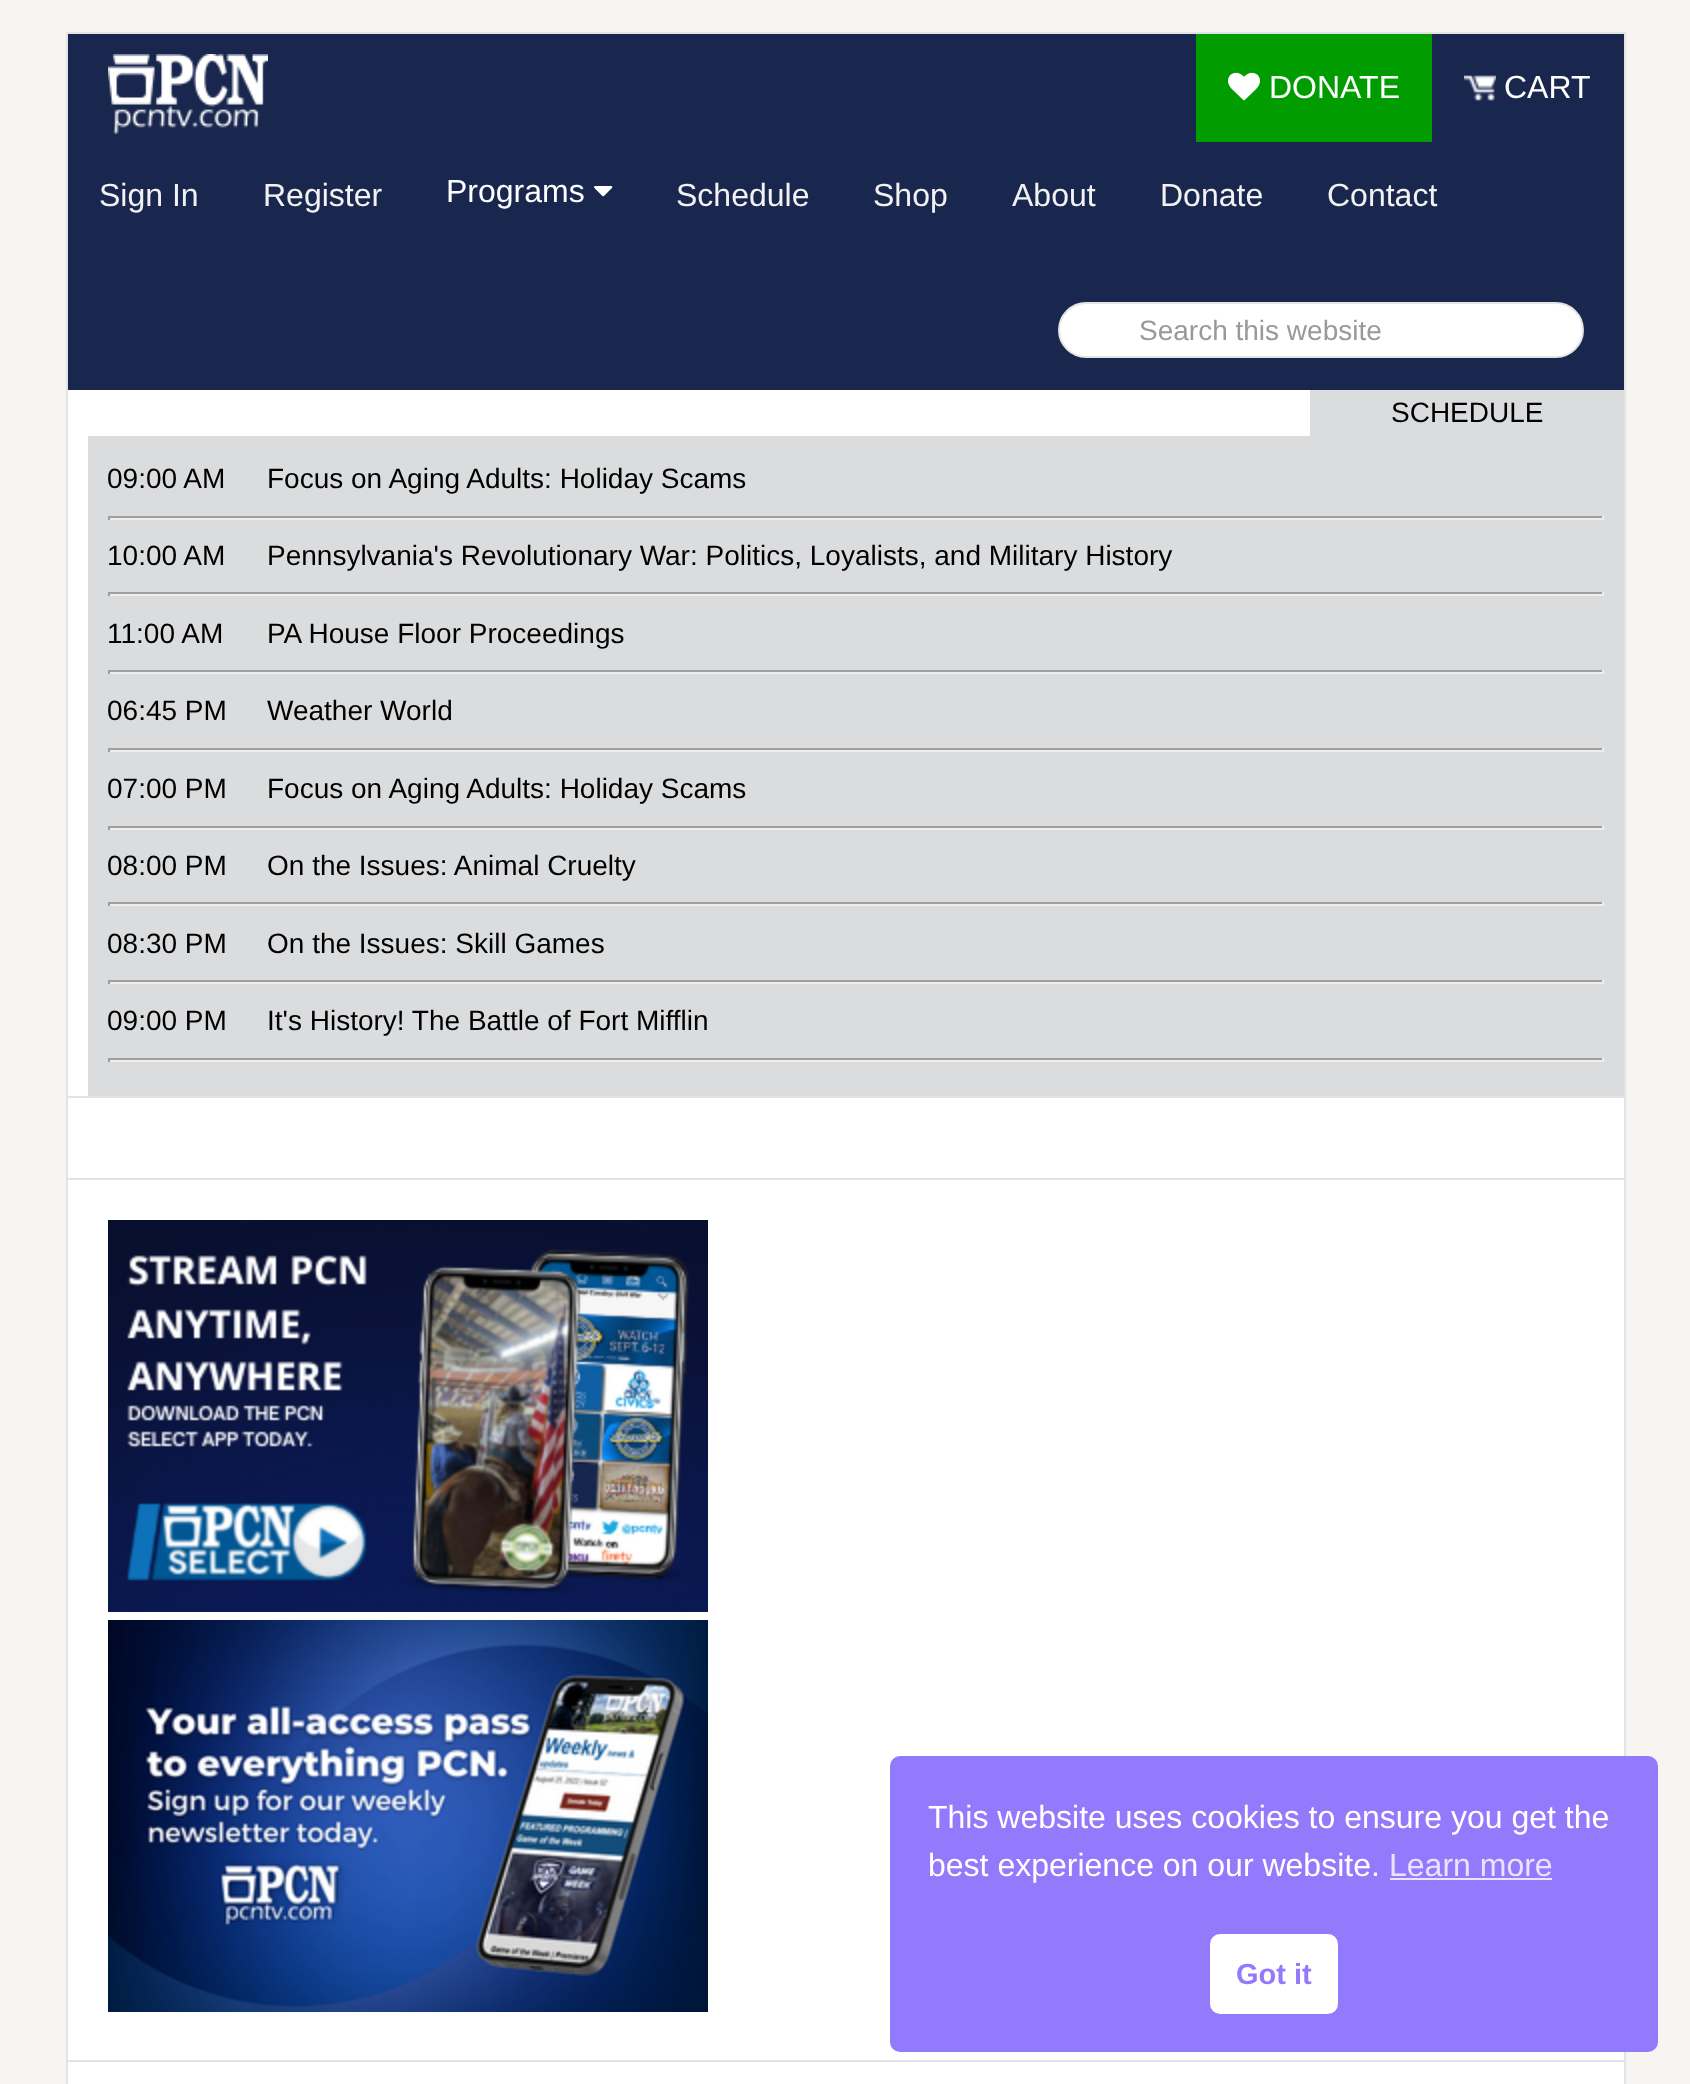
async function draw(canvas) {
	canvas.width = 1690;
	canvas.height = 2084;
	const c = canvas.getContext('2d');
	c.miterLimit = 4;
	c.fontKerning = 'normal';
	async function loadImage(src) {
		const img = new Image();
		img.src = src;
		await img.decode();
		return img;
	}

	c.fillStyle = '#f6f5f2';
	c.fillRect(0, 0, 1690, 2084);
	c.strokeStyle = '#e3e3e3';
	c.lineWidth = 2;
	c.strokeRect(67, 33, 1558, 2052);
	c.fillStyle = '#19274e';
	c.fillRect(68, 34, 1556, 356);
	c.drawImage(await loadImage('img1.png'), 108, 54, 160, 80);
	c.fillStyle = '#019d00';
	c.fillRect(1196, 34, 236, 108);
	c.drawImage(await loadImage('img2.png'), 1228, 72, 32, 29);
	c.font = '32px Liberation Sans';
	c.fillStyle = '#fff';
	c.fillText('DONATE', 1269, 98);
	c.drawImage(await loadImage('img3.png'), 1464, 75, 32, 26);
	c.fillText('CART', 1504, 98);
	c.fillStyle = '#f2f2f2';
	c.fillText('Sign In', 99, 206);
	c.fillText('Register', 263, 206);
	c.fillStyle = '#fff';
	c.fillText('Programs', 446, 202);
	c.drawImage(await loadImage('img4.png'), 594, 186, 19, 11);
	c.fillStyle = '#f2f2f2';
	for (const [text, x, y] of [
		['Schedule', 676, 206],
		['Shop', 873, 206],
		['About', 1012, 206],
		['Donate', 1160, 206],
		['Contact', 1327, 206],
	]) {
		c.fillText(text, x, y);
	}
	c.fillStyle = '#fff';
	c.beginPath();
	c.roundRect(1059, 303, 524, 54, 27);
	c.fill();
	c.stroke();
	c.font = '28px Liberation Sans';
	c.fillStyle = '#999';
	c.fillText('Search this website', 1139, 340);
	for (const [x, y, w, h, color] of [
		[68, 390, 1556, 1694, '#fff'],
		[68, 1096, 1556, 2, '#e3e3e3'],
		[1310, 390, 314, 46, '#dbdcde'],
	]) {
		c.fillStyle = color;
		c.fillRect(x, y, w, h);
	}
	c.fillStyle = '#000';
	c.fillText('SCHEDULE', 1391, 422);
	c.fillStyle = '#dbdcde';
	c.fillRect(88, 436, 1536, 660);
	c.fillStyle = '#000';
	c.fillText('09:00 AM', 107, 488);
	c.fillText('Focus on Aging Adults: Holiday Scams', 267, 488);
	for (const [x, y, w, h, color] of [
		[108, 516, 1496, 2, '#9f9f9f'],
		[1602, 516, 2, 4, '#eee'],
		[108, 518, 1496, 2, '#eee'],
		[108, 516, 2, 4, '#9f9f9f'],
	]) {
		c.fillStyle = color;
		c.fillRect(x, y, w, h);
	}
	c.fillStyle = '#000';
	c.fillText('10:00 AM', 107, 565);
	c.fillText('Pennsylvania\'s Revolutionary War: Politics, Loyalists, and Military History', 267, 565);
	for (const [x, y, w, h, color] of [
		[108, 592, 1496, 2, '#9f9f9f'],
		[1602, 592, 2, 4, '#eee'],
		[108, 594, 1496, 2, '#eee'],
		[108, 592, 2, 4, '#9f9f9f'],
	]) {
		c.fillStyle = color;
		c.fillRect(x, y, w, h);
	}
	c.fillStyle = '#000';
	c.fillText('11:00 AM', 107, 643);
	c.fillText('PA House Floor Proceedings', 267, 643);
	for (const [x, y, w, h, color] of [
		[108, 670, 1496, 2, '#9f9f9f'],
		[1602, 670, 2, 4, '#eee'],
		[108, 672, 1496, 2, '#eee'],
		[108, 670, 2, 4, '#9f9f9f'],
	]) {
		c.fillStyle = color;
		c.fillRect(x, y, w, h);
	}
	c.fillStyle = '#000';
	c.fillText('06:45 PM', 107, 720);
	c.fillText('Weather World', 267, 720);
	for (const [x, y, w, h, color] of [
		[108, 748, 1496, 2, '#9f9f9f'],
		[1602, 748, 2, 4, '#eee'],
		[108, 750, 1496, 2, '#eee'],
		[108, 748, 2, 4, '#9f9f9f'],
	]) {
		c.fillStyle = color;
		c.fillRect(x, y, w, h);
	}
	c.fillStyle = '#000';
	c.fillText('07:00 PM', 107, 798);
	c.fillText('Focus on Aging Adults: Holiday Scams', 267, 798);
	for (const [x, y, w, h, color] of [
		[108, 826, 1496, 2, '#9f9f9f'],
		[1602, 826, 2, 4, '#eee'],
		[108, 828, 1496, 2, '#eee'],
		[108, 826, 2, 4, '#9f9f9f'],
	]) {
		c.fillStyle = color;
		c.fillRect(x, y, w, h);
	}
	c.fillStyle = '#000';
	c.fillText('08:00 PM', 107, 875);
	c.fillText('On the Issues: Animal Cruelty', 267, 875);
	for (const [x, y, w, h, color] of [
		[108, 902, 1496, 2, '#9f9f9f'],
		[1602, 902, 2, 4, '#eee'],
		[108, 904, 1496, 2, '#eee'],
		[108, 902, 2, 4, '#9f9f9f'],
	]) {
		c.fillStyle = color;
		c.fillRect(x, y, w, h);
	}
	c.fillStyle = '#000';
	c.fillText('08:30 PM', 107, 953);
	c.fillText('On the Issues: Skill Games', 267, 953);
	for (const [x, y, w, h, color] of [
		[108, 980, 1496, 2, '#9f9f9f'],
		[1602, 980, 2, 4, '#eee'],
		[108, 982, 1496, 2, '#eee'],
		[108, 980, 2, 4, '#9f9f9f'],
	]) {
		c.fillStyle = color;
		c.fillRect(x, y, w, h);
	}
	c.fillStyle = '#000';
	c.fillText('09:00 PM', 107, 1030);
	c.fillText('It\'s History! The Battle of Fort Mifflin', 267, 1030);
	for (const [x, y, w, h, color] of [
		[108, 1058, 1496, 2, '#9f9f9f'],
		[1602, 1058, 2, 4, '#eee'],
		[108, 1060, 1496, 2, '#eee'],
		[108, 1058, 2, 4, '#9f9f9f'],
		[68, 1178, 1556, 2, '#e3e3e3'],
		[68, 2060, 1556, 2, '#e3e3e3'],
	]) {
		c.fillStyle = color;
		c.fillRect(x, y, w, h);
	}
	c.drawImage(await loadImage('img5.png'), 108, 1220, 600, 392);
	c.drawImage(await loadImage('img6.png'), 108, 1620, 600, 392);
	c.fillStyle = '#937afc';
	c.beginPath();
	c.roundRect(890, 1756, 768, 296, 10);
	c.fill();
	c.font = '32px Liberation Sans';
	c.fillStyle = '#fff';
	c.fillText('This website uses cookies to ensure you get the', 928, 1828);
	c.fillText('best experience on our website.', 928, 1876);
	c.fillStyle = '#e9e4fe';
	c.fillText('Learn more', 1389, 1876);
	c.fillRect(1390, 1878, 162, 2);
	c.fillStyle = '#fff';
	c.beginPath();
	c.roundRect(1210, 1934, 128, 80, 10);
	c.fill();
	c.font = 'bold 29px Liberation Sans';
	c.fillStyle = '#937afc';
	c.fillText('Got it', 1236, 1984);
}

draw(document.querySelector('canvas'));
